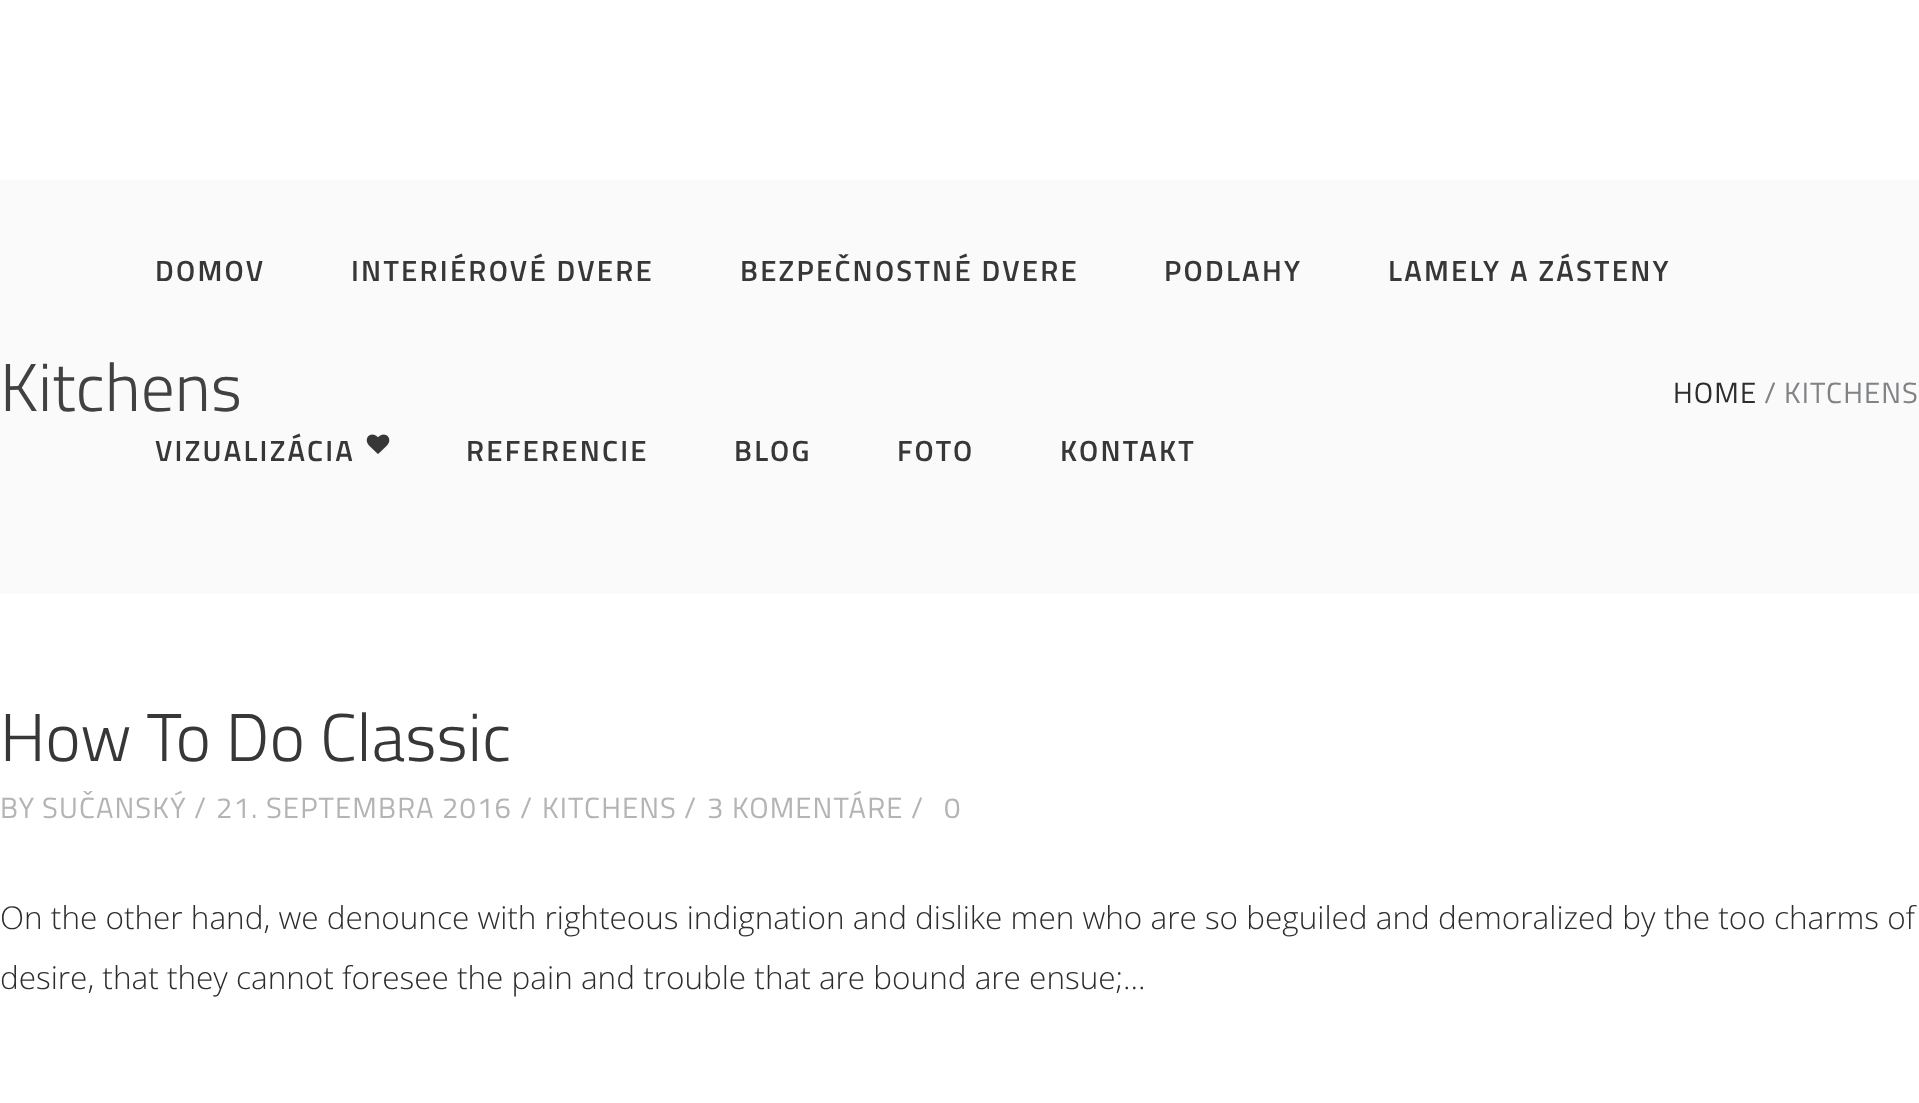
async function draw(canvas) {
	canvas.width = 1919;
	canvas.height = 1103;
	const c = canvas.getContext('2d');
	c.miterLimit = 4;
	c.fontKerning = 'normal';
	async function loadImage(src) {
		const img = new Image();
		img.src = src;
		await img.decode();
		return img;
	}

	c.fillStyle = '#fff';
	c.fillRect(0, 0, 1919, 1103);
	c.fillStyle = '#fafafa';
	c.fillRect(0, 180, 1919, 414);
	c.letterSpacing = '2.25px';
	c.font = '600 29.25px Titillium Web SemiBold';
	c.fillStyle = '#373737';
	for (const [text, x, y] of [
		['DOMOV', 155, 281],
		['INTERIÉROVÉ DVERE', 351, 281],
		['BEZPEČNOSTNÉ DVERE', 740, 281],
		['PODLAHY', 1164, 281],
		['LAMELY A ZÁSTENY', 1388, 281],
		['VIZUALIZÁCIA', 155, 461],
	]) {
		c.fillText(text, x, y);
	}
	c.drawImage(await loadImage('img1.png'), 366, 434, 24, 20);
	for (const [text, x, y] of [
		['REFERENCIE', 466, 461],
		['BLOG', 734, 461],
		['FOTO', 897, 461],
		['KONTAKT', 1060, 461],
	]) {
		c.fillText(text, x, y);
	}
	c.letterSpacing = '0px';
	c.font = '300 67.5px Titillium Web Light';
	c.fillStyle = '#414042';
	c.fillText('Kitchens', 0, 411);
	c.letterSpacing = '1.1px';
	c.font = '29.25px Titillium Web';
	c.fillStyle = '#2d2d2d';
	c.fillText('HOME', 1673, 403);
	c.fillStyle = '#808285';
	c.fillText('/', 1764, 403);
	c.fillText('KITCHENS', 1784, 403);
	c.letterSpacing = '0px';
	c.font = '300 67.5px Titillium Web Light';
	c.fillStyle = '#373737';
	c.fillText('How To Do Classic', 0, 761);
	c.letterSpacing = '1.1px';
	c.font = '29.25px Titillium Web';
	c.fillStyle = '#b4b4b4';
	for (const [text, x, y] of [
		['BY', 0, 818],
		['SUČANSKÝ', 42, 818],
		['/', 194, 818],
		['21. SEPTEMBRA 2016', 216, 818],
		['/', 520, 818],
		['KITCHENS', 542, 818],
		['/', 684, 818],
		['3 KOMENTÁRE', 707, 818],
		['/', 911, 818],
		['0', 944, 818],
	]) {
		c.fillText(text, x, y);
	}
	c.letterSpacing = '0px';
	c.font = '300 31.5px Open Sans';
	c.fillStyle = '#2d2d2d';
	c.fillText('On the other hand, we denounce with righteous indignation and dislike men who are so beguiled and demoralized by the too charms of', 0, 929);
	c.fillText('desire, that they cannot foresee the pain and trouble that are bound are ensue;...', 0, 989);
}

draw(document.querySelector('canvas'));
